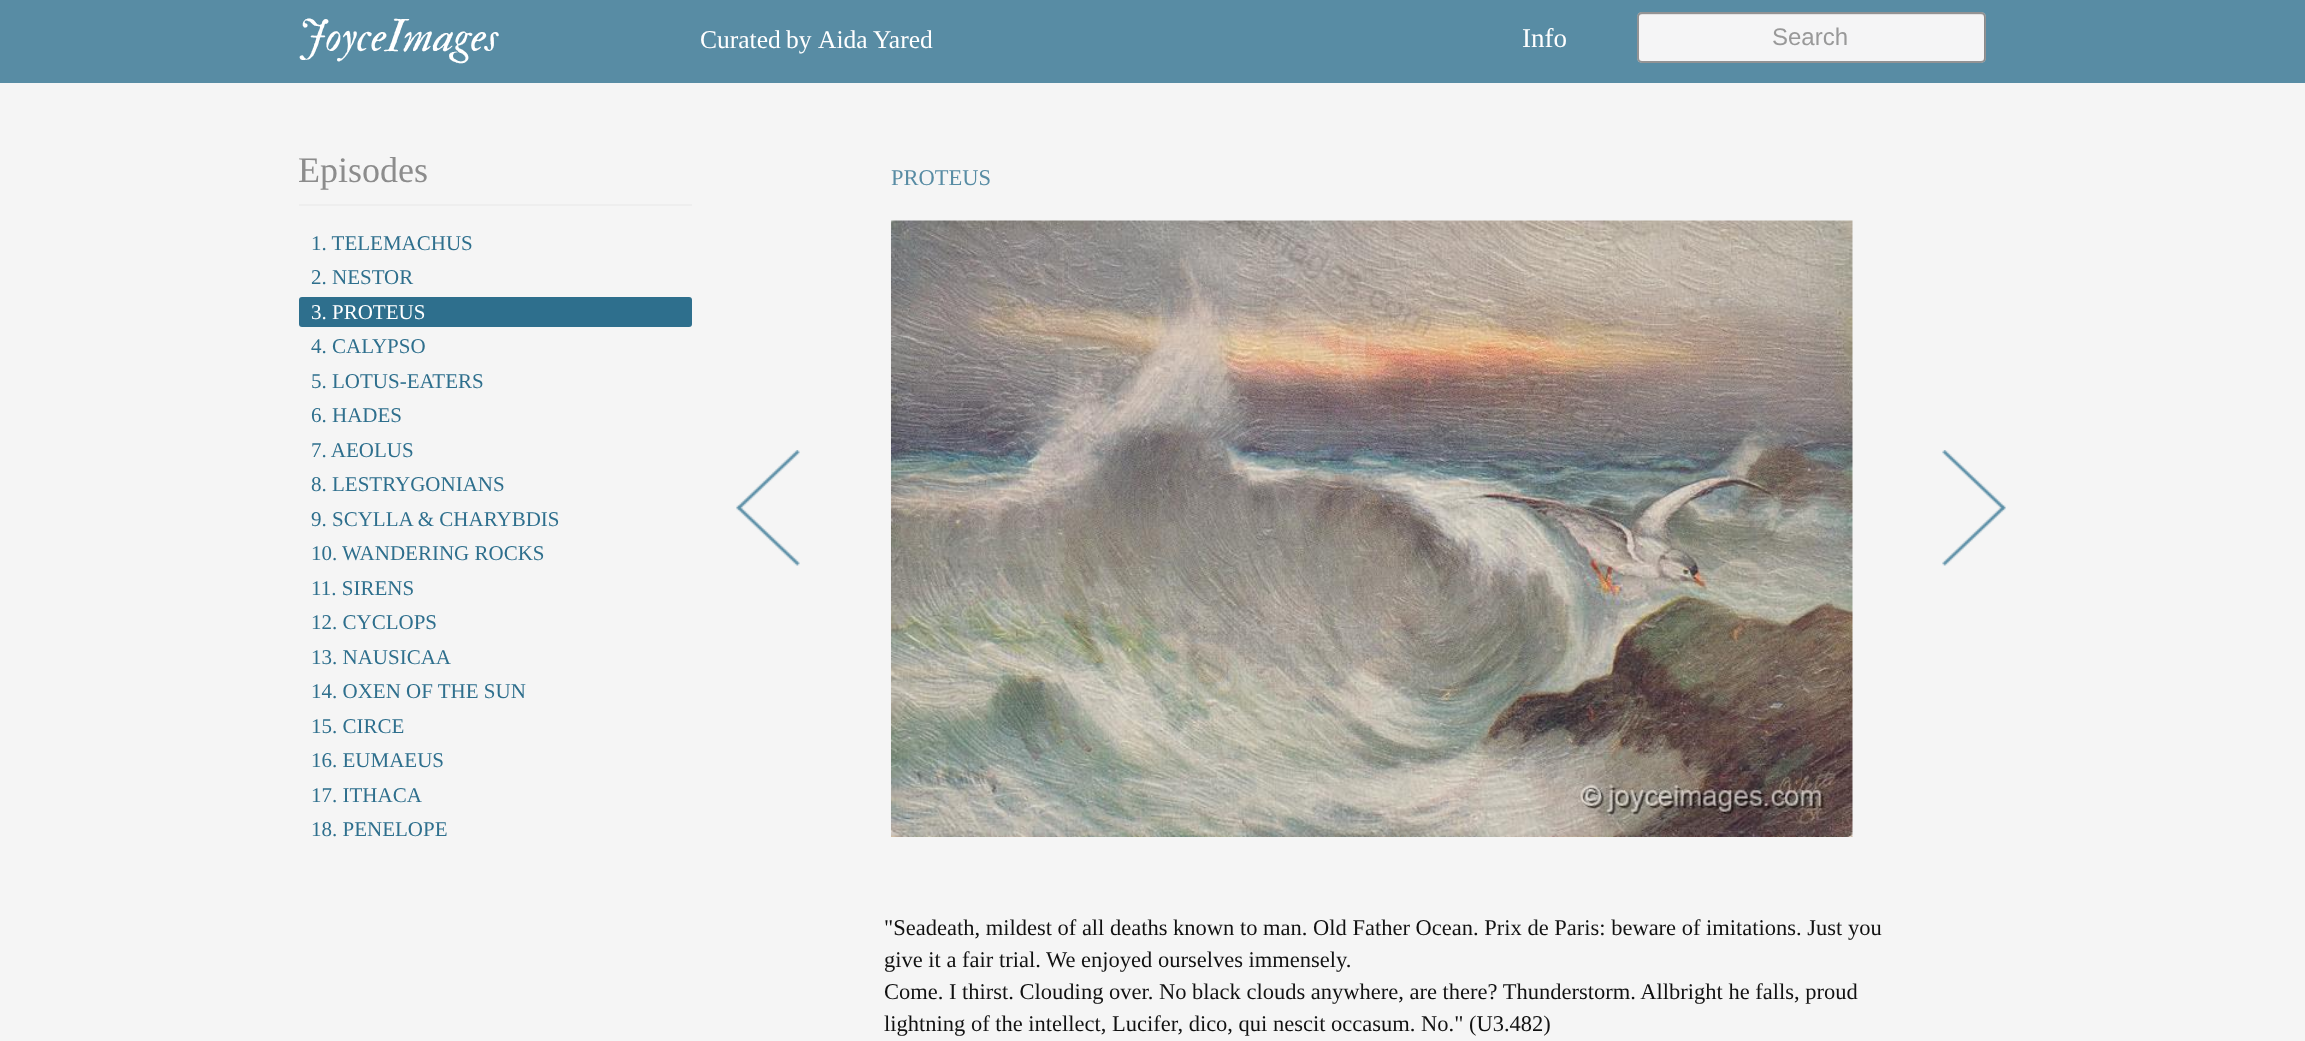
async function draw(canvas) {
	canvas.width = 2305;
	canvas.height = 1041;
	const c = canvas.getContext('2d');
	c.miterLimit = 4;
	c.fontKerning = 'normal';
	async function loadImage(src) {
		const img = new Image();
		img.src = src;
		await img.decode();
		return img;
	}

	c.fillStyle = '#f5f5f5';
	c.fillRect(0, 0, 2305, 1041);
	c.fillStyle = '#588ca4';
	c.fillRect(0, 0, 2305, 83);
	c.font = 'italic 45px IM FELL Double Pica';
	c.fillStyle = '#fff';
	c.fillText('JoyceImages', 298, 51);
	c.wordSpacing = '-1px';
	c.font = '25.5px Liberation Serif';
	c.fillText('Curated by', 700, 48);
	c.wordSpacing = '0px';
	c.fillText('Aida Yared', 818, 48);
	c.font = '27px Liberation Serif';
	c.fillText('Info', 1522, 47);
	c.fillStyle = '#f5f5f6';
	c.beginPath();
	c.roundRect(1637, 12, 349, 51, 5);
	c.fill();
	c.fillStyle = '#e3e3e4';
	c.beginPath();
	c.moveTo(1641, 15);
	c.lineTo(1982, 15);
	c.bezierCurveTo(1983, 15, 1984, 16, 1984, 18);
	c.lineTo(1984, 61);
	c.bezierCurveTo(1985, 61, 1985, 60, 1985, 59);
	c.lineTo(1985, 17);
	c.bezierCurveTo(1985, 15, 1984, 14, 1982, 14);
	c.lineTo(1641, 14);
	c.bezierCurveTo(1639, 14, 1638, 15, 1638, 17);
	c.lineTo(1638, 18);
	c.bezierCurveTo(1638, 16, 1639, 15, 1641, 15);
	c.closePath();
	c.fill();
	c.beginPath();
	c.roundRect(1638, 13, 347, 49, 4);
	c.strokeStyle = '#32323280';
	c.lineWidth = 2;
	c.stroke();
	c.font = '24px Liberation Sans';
	c.fillStyle = '#999';
	c.fillText('Search', 1772, 45);
	c.font = '36px Liberation Serif';
	c.fillStyle = '#8c8c8c';
	c.fillText('Episodes', 298, 182);
	c.fillStyle = '#eee';
	c.fillRect(299, 204, 393, 2);
	c.font = '21px Liberation Serif';
	c.fillStyle = '#2e6f8d';
	c.fillText('1. TELEMACHUS', 311, 250);
	c.fillText('2. NESTOR', 311, 284);
	c.beginPath();
	c.roundRect(299, 297, 393, 30, 3);
	c.fill();
	c.fillStyle = '#fff';
	c.fillText('3. PROTEUS', 311, 319);
	c.fillStyle = '#2e6f8d';
	for (const [text, x, y] of [
		['4. CALYPSO', 311, 353],
		['5. LOTUS-EATERS', 311, 388],
		['6. HADES', 311, 422],
		['7. AEOLUS', 311, 457],
		['8. LESTRYGONIANS', 311, 491],
		['9. SCYLLA & CHARYBDIS', 311, 526],
		['10. WANDERING ROCKS', 311, 560],
		['11. SIRENS', 311, 595],
		['12. CYCLOPS', 311, 629],
		['13. NAUSICAA', 311, 664],
		['14. OXEN OF THE SUN', 311, 698],
		['15. CIRCE', 311, 733],
		['16. EUMAEUS', 311, 767],
		['17. ITHACA', 311, 802],
		['18. PENELOPE', 311, 836],
	]) {
		c.fillText(text, x, y);
	}
	c.drawImage(await loadImage('img1.png'), 736, 450, 64, 116);
	c.font = '22.5px Liberation Serif';
	c.fillStyle = '#588ca4';
	c.fillText('PROTEUS', 891, 185);
	c.drawImage(await loadImage('img2.png'), 891, 220, 962, 617);
	c.fillStyle = '#111';
	for (const [text, x, y] of [
		['"Seadeath, mildest of all deaths known to man. Old Father Ocean. Prix de Paris: beware of imitations. Just you', 884, 935],
		['give it a fair trial. We enjoyed ourselves immensely.', 884, 967],
		['Come. I thirst. Clouding over. No black clouds anywhere, are there? Thunderstorm. Allbright he falls, proud', 884, 999],
		['lightning of the intellect, Lucifer, dico, qui nescit occasum. No." (U3.482)', 884, 1031],
	]) {
		c.fillText(text, x, y);
	}
	c.drawImage(await loadImage('img3.png'), 1942, 450, 64, 116);
}

draw(document.querySelector('canvas'));
